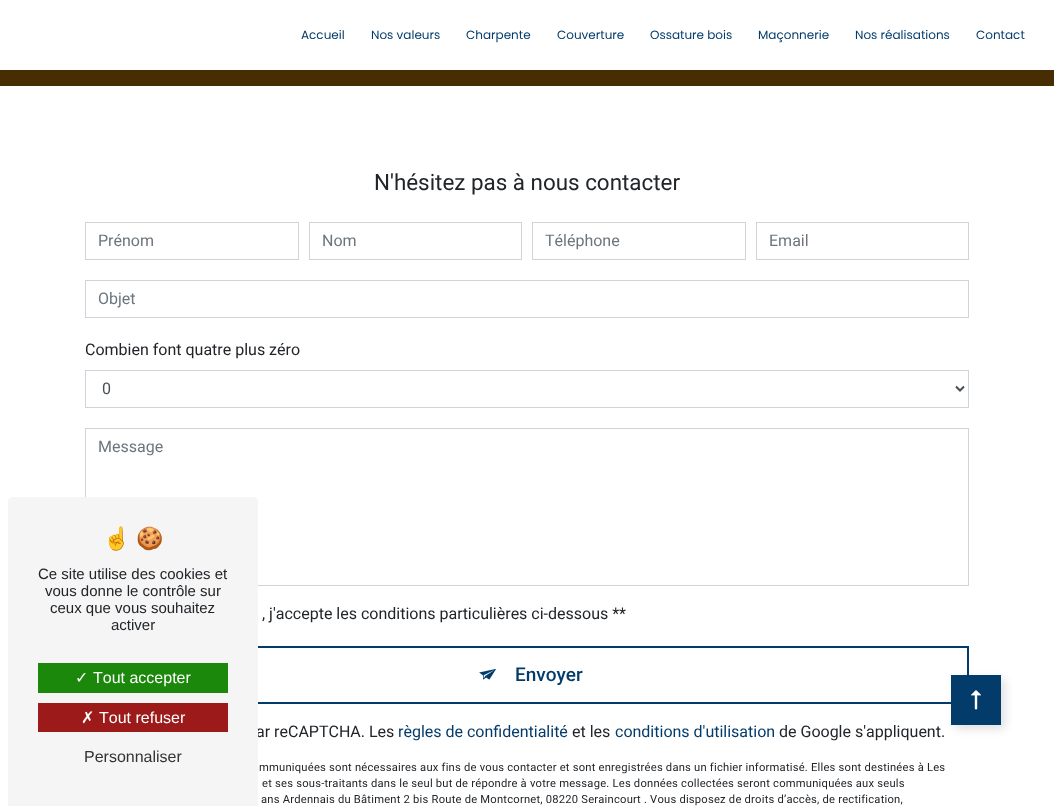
async function draw(canvas) {
	canvas.width = 1054;
	canvas.height = 806;
	const c = canvas.getContext('2d');
	c.miterLimit = 4;
	c.fontKerning = 'none';
	async function loadImage(src) {
		const img = new Image();
		img.src = src;
		await img.decode();
		return img;
	}

	c.fillStyle = '#482d02';
	c.fillRect(0, 0, 1054, 806);
	c.fillStyle = '#fff';
	c.fillRect(0, 0, 1054, 70);
	c.font = '12px Poppins';
	c.fillStyle = '#033c6b';
	for (const [text, x, y] of [
		['Accueil', 301, 39],
		['Nos valeurs', 371, 39],
		['Charpente', 466, 39],
		['Couverture', 557, 39],
		['Ossature bois', 650, 39],
		['Maçonnerie', 758, 39],
		['Nos réalisations', 855, 39],
		['Contact', 976, 39],
	]) {
		c.fillText(text, x, y);
	}
	c.fillStyle = '#fff';
	c.fillRect(0, 86, 1054, 720);
	c.font = '22.4px Roboto';
	c.fillStyle = '#212529';
	c.fillText('N\'hésitez pas à nous contacter', 374, 190);
	c.strokeStyle = '#ced4da';
	c.strokeRect(85.5, 222.5, 213, 37);
	c.font = '16px Roboto';
	c.fillStyle = '#6c757d';
	c.fillText('Prénom', 98, 246);
	c.strokeRect(309.5, 222.5, 212, 37);
	c.fillText('Nom', 322, 246);
	c.strokeRect(532.5, 222.5, 213, 37);
	c.fillText('Téléphone', 545, 246);
	c.strokeRect(756.5, 222.5, 212, 37);
	c.fillText('Email', 769, 246);
	c.strokeRect(85.5, 280.5, 883, 37);
	c.fillText('Objet', 98, 304);
	c.fillStyle = '#212529';
	c.fillText('Combien font quatre plus zéro', 85, 355);
	c.strokeRect(85.5, 370.5, 883, 37);
	c.beginPath();
	c.moveTo(956, 386.5);
	c.lineTo(960, 390.5);
	c.lineTo(964, 386.5);
	c.strokeStyle = '#495057';
	c.lineWidth = 2;
	c.stroke();
	c.fillStyle = '#495057';
	c.fillText('0', 102, 394);
	c.strokeStyle = '#ced4da';
	c.lineWidth = 1;
	c.strokeRect(85.5, 428.5, 883, 157);
	c.fillStyle = '#6c757d';
	c.fillText('Message', 98, 452);
	c.fillStyle = '#212529';
	c.fillText(', j\'accepte les conditions particulières ci-dessous **', 262, 619);
	c.strokeStyle = '#033c6b';
	c.lineWidth = 2;
	c.strokeRect(86, 647, 882, 56);
	c.drawImage(await loadImage('img1.png'), 479, 669, 17, 11);
	c.font = '500 19px Roboto';
	c.fillStyle = '#033c6b';
	c.fillText('Envoyer', 515, 681);
	c.font = '16px Roboto';
	c.fillStyle = '#212529';
	c.fillText('ar reCAPTCHA. Les', 256, 737);
	c.fillStyle = '#033c6b';
	c.fillText('règles de confidentialité', 398, 737);
	c.fillStyle = '#212529';
	c.fillText('et les', 572, 737);
	c.fillStyle = '#033c6b';
	c.fillText('conditions d\'utilisation', 615, 737);
	c.fillStyle = '#212529';
	c.fillText('de Google s\'appliquent.', 779, 737);
	c.letterSpacing = '0.22px';
	c.font = '11.2px Roboto';
	for (const [text, x, y] of [
		['mmuniquées sont nécessaires aux fins de vous contacter et sont enregistrées dans un fichier informatisé. Elles sont destinées à Les', 259, 771],
		['et ses sous-traitants dans le seul but de répondre à votre message. Les données collectées seront communiquées aux seuls', 262, 787],
		['ans Ardennais du Bâtiment 2 bis Route de Montcornet, 08220 Seraincourt . Vous disposez de droits d’accès, de rectification,', 261, 803],
	]) {
		c.fillText(text, x, y);
	}
	c.fillStyle = '#0000001f';
	c.filter = 'blur(5px)';
	c.beginPath();
	c.rect(955, 679, 50, 50);
	c.fill();
	c.filter = 'none';
	c.fillStyle = '#033c6b';
	c.fillRect(951, 675, 50, 50);
	c.drawImage(await loadImage('img2.png'), 971, 690, 10, 20);
	c.fillStyle = '#f5f5f5';
	c.beginPath();
	c.roundRect(8, 497, 250, 309, [5, 5, 0, 0]);
	c.fill();
	c.letterSpacing = '0px';
	c.font = '22px Noto Color Emoji';
	c.fillStyle = '#212529';
	c.fillText('☝', 103, 546);
	c.fillText('🍪', 136, 546);
	c.font = '15px Liberation Sans';
	for (const [text, x, y] of [
		['Ce site utilise des cookies et', 38, 579],
		['vous donne le contrôle sur', 45, 596],
		['ceux que vous souhaitez', 50, 613],
		['activer', 111, 630],
	]) {
		c.fillText(text, x, y);
	}
	c.fillStyle = '#1b870b';
	c.fillRect(38, 663, 190, 30);
	c.font = '16px DejaVu Sans';
	c.fillStyle = '#fff';
	c.fillText('✓', 75, 683);
	c.font = '16px Liberation Sans';
	c.fillText('Tout accepter', 93, 683);
	c.fillStyle = '#9c1a1a';
	c.fillRect(38, 703, 190, 29);
	c.font = '16px DejaVu Sans';
	c.fillStyle = '#fff';
	c.fillText('✗', 81, 723);
	c.font = '16px Liberation Sans';
	c.fillText('Tout refuser', 99, 723);
	c.fillStyle = '#333';
	c.fillText('Personnaliser', 84, 762);
}

draw(document.querySelector('canvas'));
